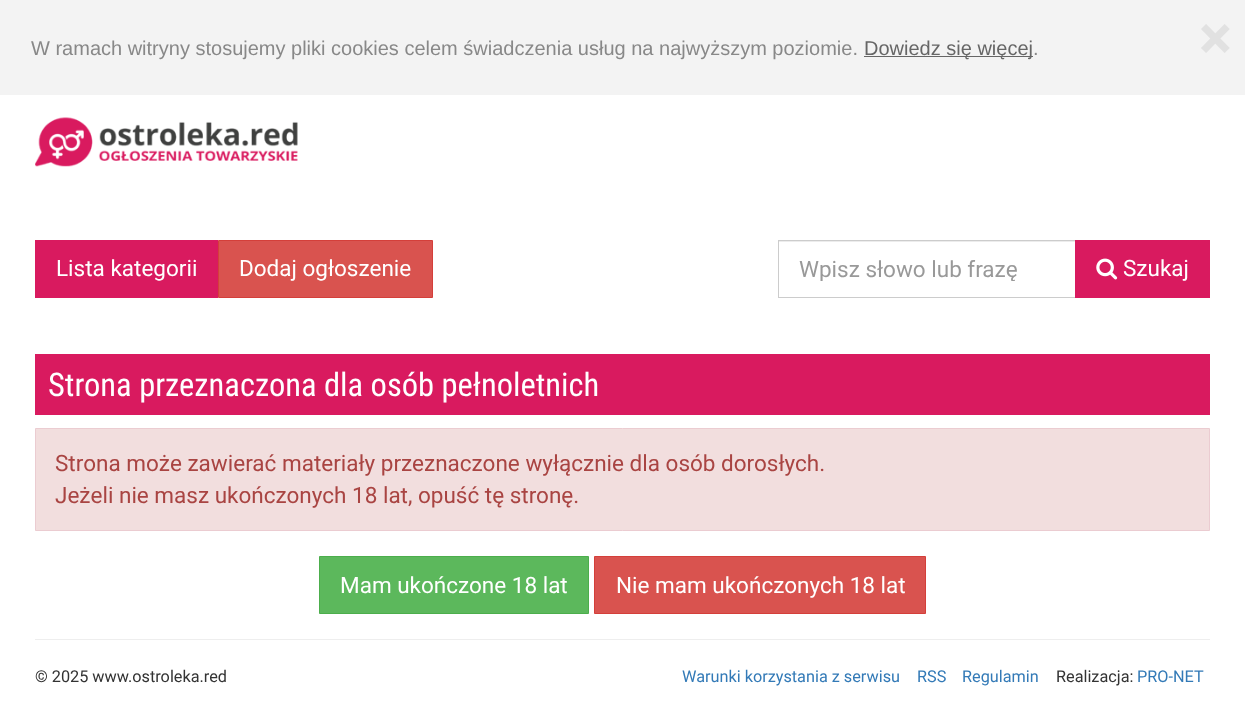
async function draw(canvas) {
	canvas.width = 1245;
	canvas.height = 712;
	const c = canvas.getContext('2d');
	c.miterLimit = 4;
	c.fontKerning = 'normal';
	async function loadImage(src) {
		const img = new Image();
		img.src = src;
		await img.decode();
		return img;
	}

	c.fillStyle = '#fff';
	c.fillRect(0, 0, 1245, 712);
	c.fillStyle = '#f3f3f3';
	c.fillRect(0, 0, 1245, 95);
	c.font = '20px Liberation Sans';
	c.fillStyle = '#888';
	c.fillText('W ramach witryny stosujemy pliki cookies celem świadczenia usług na najwyższym poziomie.', 31, 55);
	c.fillStyle = '#666';
	c.fillRect(864, 56, 169, 1);
	c.fillText('Dowiedz się więcej', 864, 55);
	c.fillStyle = '#888';
	c.fillText('.', 1033, 55);
	c.font = 'bold 62px Roboto';
	c.fillStyle = '#e1e1e1';
	c.fillText('×', 1199, 59);
	c.drawImage(await loadImage('img1.png'), 35, 117, 263, 50);
	c.fillStyle = '#d91a5f';
	c.fillRect(35, 240, 183, 58);
	c.font = '22.5px Roboto';
	c.fillStyle = '#fff';
	c.fillText('Lista kategorii', 56, 276);
	c.fillStyle = '#d9534f';
	c.beginPath();
	c.rect(218.5, 240.5, 214, 57);
	c.fill();
	c.strokeStyle = '#d43f3a';
	c.stroke();
	c.fillStyle = '#fff';
	c.fillText('Dodaj ogłoszenie', 239, 276);
	c.fillStyle = '#ececec';
	c.fillRect(779, 241, 296, 1);
	c.strokeStyle = '#ccc';
	c.strokeRect(778.5, 240.5, 297, 57);
	c.save();
	c.beginPath();
	c.rect(799, 255, 256, 26);
	c.clip();
	c.fillStyle = '#999';
	c.fillText('Wpisz słowo lub frazę', 799, 277);
	c.restore();
	c.fillStyle = '#d91a5f';
	c.fillRect(1075, 240, 135, 58);
	c.drawImage(await loadImage('img2.png'), 1096, 258, 22, 22);
	c.fillStyle = '#fff';
	c.fillText('Szukaj', 1123, 276);
	c.fillStyle = '#d91a5f';
	c.fillRect(35, 354, 1175, 61);
	c.font = '32.5px Roboto Condensed';
	c.fillStyle = '#fff';
	c.fillText('Strona przeznaczona dla osób pełnoletnich', 48, 396);
	c.fillStyle = '#f2dede';
	c.beginPath();
	c.rect(35.5, 428.5, 1174, 102);
	c.fill();
	c.strokeStyle = '#ebccd1';
	c.stroke();
	c.font = '22.5px Roboto';
	c.fillStyle = '#a94442';
	c.fillText('Strona może zawierać materiały przeznaczone wyłącznie dla osób dorosłych.', 55, 471);
	c.fillText('Jeżeli nie masz ukończonych 18 lat, opuść tę stronę.', 55, 503);
	c.fillStyle = '#5cb85c';
	c.beginPath();
	c.rect(319.5, 556.5, 269, 57);
	c.fill();
	c.strokeStyle = '#4cae4c';
	c.stroke();
	c.fillStyle = '#fff';
	c.fillText('Mam ukończone 18 lat', 340, 593);
	c.fillStyle = '#d9534f';
	c.beginPath();
	c.rect(594.5, 556.5, 331, 57);
	c.fill();
	c.strokeStyle = '#d43f3a';
	c.stroke();
	c.fillStyle = '#fff';
	c.fillText('Nie mam ukończonych 18 lat', 616, 593);
	c.fillStyle = '#eee';
	c.fillRect(35, 639, 1175, 1);
	c.font = '16.25px Roboto';
	c.fillStyle = '#333';
	c.fillText('© 2025 www.ostroleka.red', 35, 682);
	c.fillStyle = '#337ab7';
	for (const [text, x, y] of [
		['Warunki korzystania z serwisu', 682, 682],
		['RSS', 917, 682],
		['Regulamin', 962, 682],
	]) {
		c.fillText(text, x, y);
	}
	c.fillStyle = '#333';
	c.fillText('Realizacja:', 1056, 682);
	c.fillStyle = '#337ab7';
	c.fillText('PRO-NET', 1137, 682);
}

draw(document.querySelector('canvas'));
